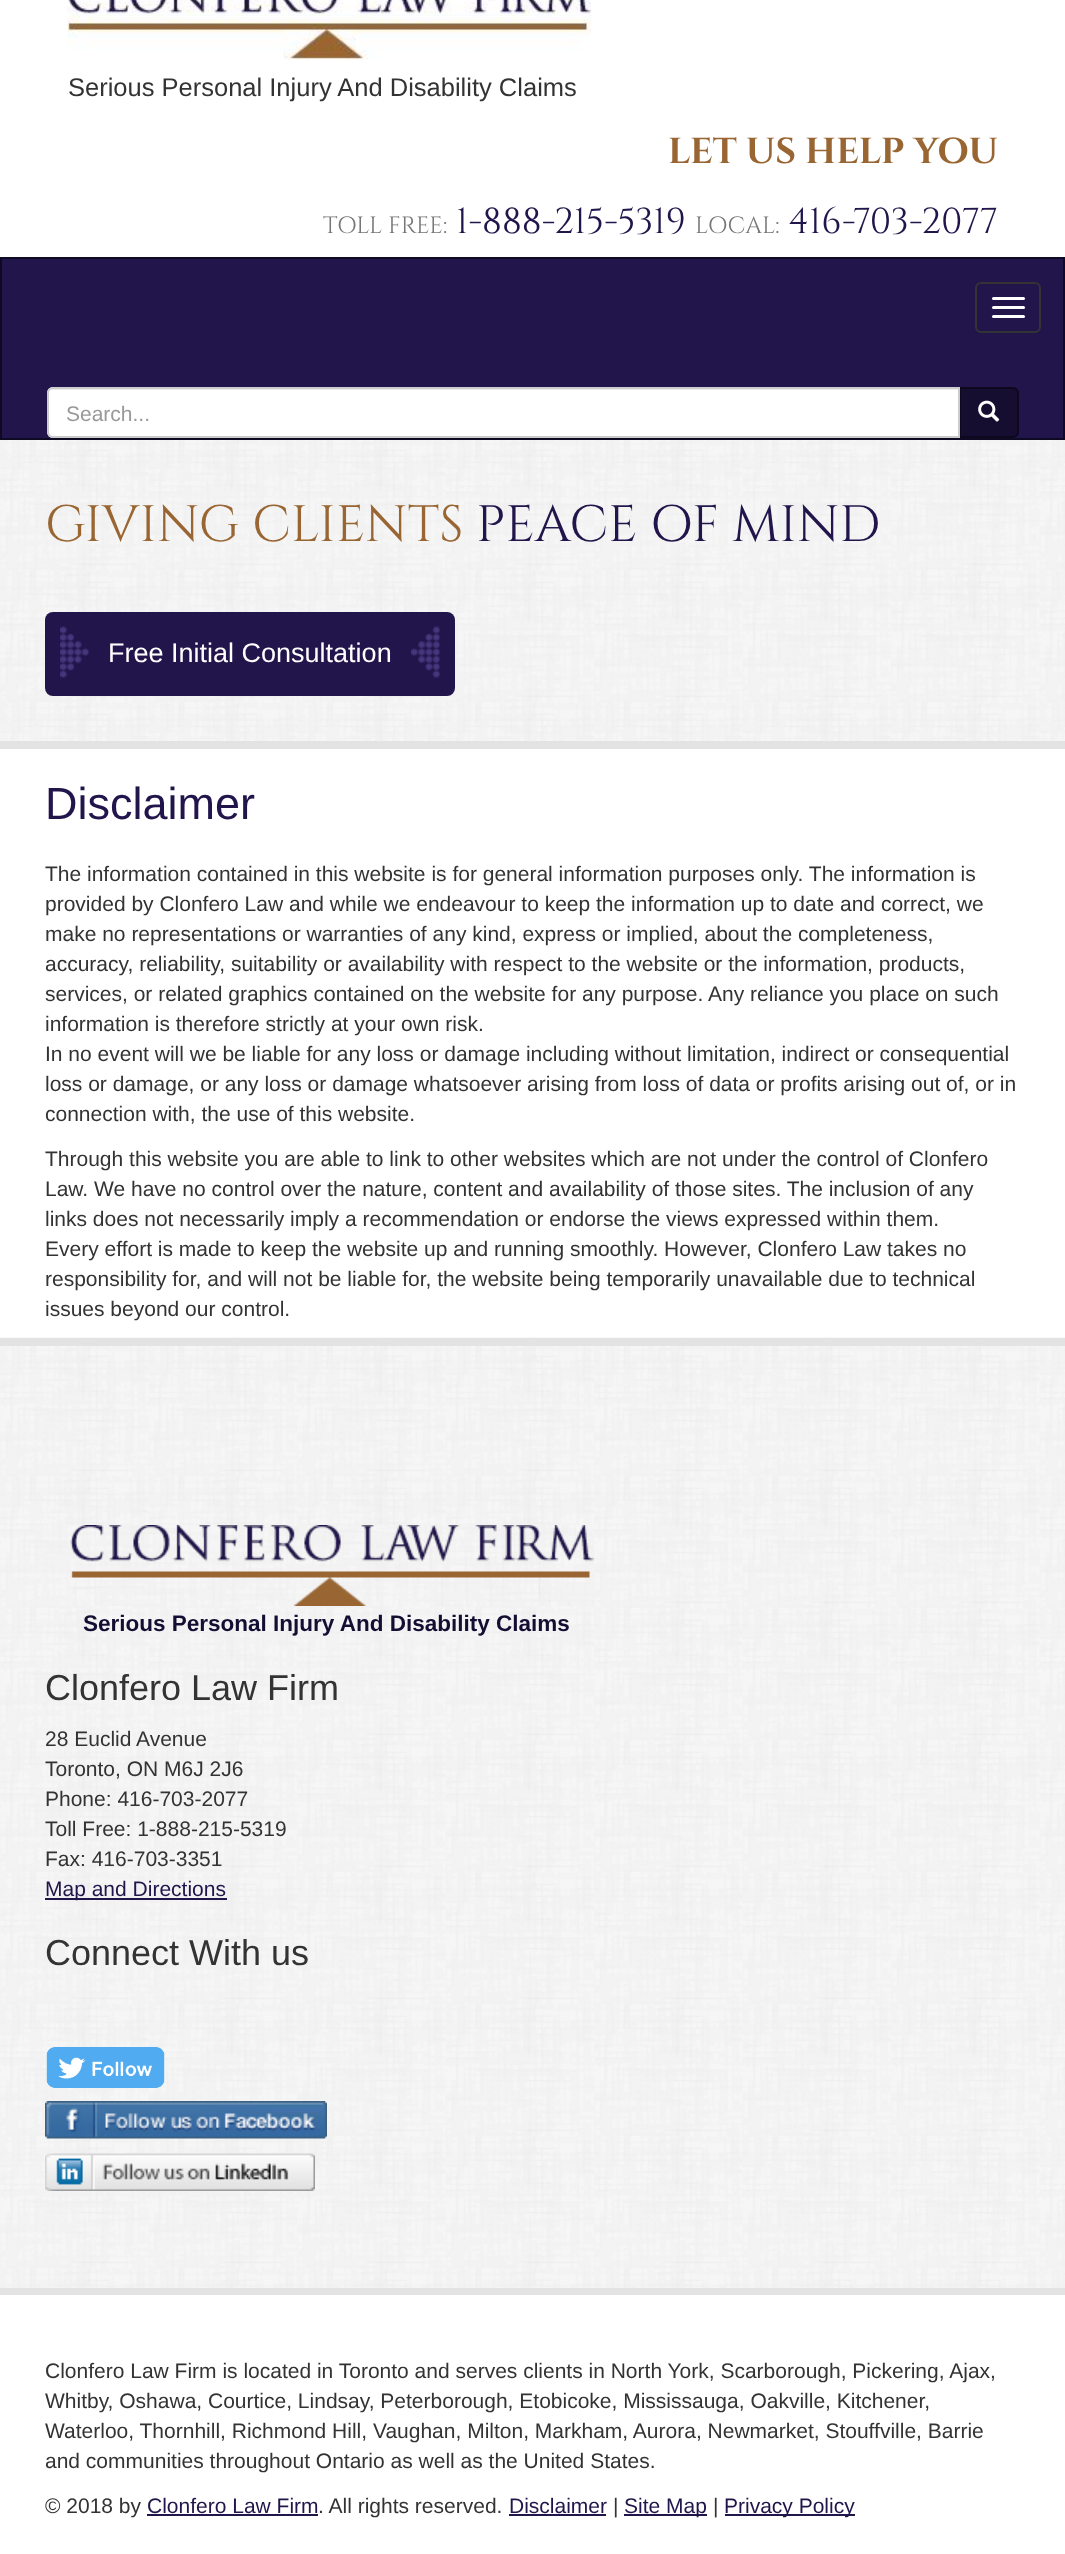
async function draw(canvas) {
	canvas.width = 1065;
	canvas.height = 2554;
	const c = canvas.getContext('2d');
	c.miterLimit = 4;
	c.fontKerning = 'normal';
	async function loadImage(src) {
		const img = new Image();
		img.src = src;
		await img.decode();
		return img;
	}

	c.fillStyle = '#fff';
	c.fillRect(0, 0, 1065, 2554);
	c.drawImage(await loadImage('img1.png'), 67, 0, 524, 60);
	c.font = '25.5px Liberation Sans';
	c.fillStyle = '#333';
	c.fillText('Serious Personal Injury And Disability Claims', 68, 96);
	c.font = 'bold 36px Cinzel';
	c.fillStyle = '#963';
	c.fillText('LET US HELP YOU', 668, 163);
	c.font = '23.5px Cinzel';
	c.fillStyle = '#777';
	c.fillText('TOLL FREE:', 323, 233);
	c.font = '36px Cinzel';
	c.fillStyle = '#21154b';
	c.fillText('1-888-215-5319', 456, 233);
	c.font = '23.5px Cinzel';
	c.fillStyle = '#777';
	c.fillText('LOCAL:', 695, 233);
	c.font = '36px Cinzel';
	c.fillStyle = '#21154b';
	c.fillText('416-703-2077', 788, 233);
	c.beginPath();
	c.rect(1, 258, 1063, 181);
	c.fill();
	c.strokeStyle = '#0f0a23';
	c.lineWidth = 2;
	c.stroke();
	c.beginPath();
	c.roundRect(976, 283, 64, 49, 5);
	c.strokeStyle = '#333';
	c.stroke();
	c.fillStyle = '#fff';
	c.beginPath();
	c.roundRect(992, 297, 33, 3, 1.5);
	c.fill();
	c.beginPath();
	c.roundRect(992, 306, 33, 3, 1.5);
	c.fill();
	c.beginPath();
	c.roundRect(992, 315, 33, 3, 1.5);
	c.fill();
	c.fillStyle = '#160e31';
	c.beginPath();
	c.roundRect(960, 388, 58, 49, [0, 5, 5, 0]);
	c.fill();
	c.strokeStyle = '#0d081d';
	c.stroke();
	c.fillStyle = '#fff';
	c.beginPath();
	c.roundRect(47, 387, 913, 51, [6, 0, 0, 6]);
	c.fill();
	c.fillStyle = '#ececec';
	c.beginPath();
	c.moveTo(52, 390);
	c.lineTo(958, 390);
	c.lineTo(958, 437);
	c.lineTo(959, 437);
	c.lineTo(959, 389);
	c.lineTo(53, 389);
	c.bezierCurveTo(50, 389, 48, 391, 48, 394);
	c.bezierCurveTo(48, 392, 50, 390, 52, 390);
	c.closePath();
	c.fill();
	c.beginPath();
	c.roundRect(48, 388, 911, 49, [5, 0, 0, 5]);
	c.strokeStyle = '#ccc';
	c.stroke();
	c.font = '21px Liberation Sans';
	c.fillStyle = '#999';
	c.fillText('Search...', 66, 421);
	c.drawImage(await loadImage('img2.png'), 978, 400, 22, 22);
	c.drawImage(await loadImage('img3.png'), 0, 440, 1065, 301);
	c.fillStyle = '#e3e3e3';
	c.fillRect(0, 741, 1065, 8);
	c.font = '51px Cinzel';
	c.fillStyle = '#963';
	c.fillText('GIVING CLIENTS', 45, 541);
	c.fillStyle = '#21154b';
	c.fillText('PEACE OF MIND', 476, 541);
	c.beginPath();
	c.roundRect(45, 612, 410, 84, 8);
	c.fill();
	c.drawImage(await loadImage('img4.png'), 60, 626, 29, 52);
	c.font = '27px Liberation Sans';
	c.fillStyle = '#fff';
	c.fillText('Free Initial Consultation', 108, 662);
	c.drawImage(await loadImage('img5.png'), 411, 626, 29, 52);
	c.font = '45px Liberation Sans';
	c.fillStyle = '#21154b';
	c.fillText('Disclaimer', 45, 819);
	c.font = '21px Liberation Sans';
	c.fillStyle = '#333';
	for (const [text, x, y] of [
		['The information contained in this website is for general information purposes only. The information is', 45, 881],
		['provided by Clonfero Law and while we endeavour to keep the information up to date and correct, we', 45, 911],
		['make no representations or warranties of any kind, express or implied, about the completeness,', 45, 941],
		['accuracy, reliability, suitability or availability with respect to the website or the information, products,', 45, 971],
		['services, or related graphics contained on the website for any purpose. Any reliance you place on such', 45, 1001],
		['information is therefore strictly at your own risk.', 45, 1031],
		['In no event will we be liable for any loss or damage including without limitation, indirect or consequential', 45, 1061],
		['loss or damage, or any loss or damage whatsoever arising from loss of data or profits arising out of, or in', 45, 1091],
		['connection with, the use of this website.', 45, 1121],
		['Through this website you are able to link to other websites which are not under the control of Clonfero', 45, 1166],
		['Law. We have no control over the nature, content and availability of those sites. The inclusion of any', 45, 1196],
		['links does not necessarily imply a recommendation or endorse the views expressed within them.', 45, 1226],
		['Every effort is made to keep the website up and running smoothly. However, Clonfero Law takes no', 45, 1256],
		['responsibility for, and will not be liable for, the website being temporarily unavailable due to technical', 45, 1286],
		['issues beyond our control.', 45, 1316],
	]) {
		c.fillText(text, x, y);
	}
	c.drawImage(await loadImage('img6.png'), 0, 1337, 1065, 951);
	c.fillStyle = '#e3e3e3';
	c.fillRect(0, 1338, 1065, 8);
	c.fillRect(0, 2288, 1065, 7);
	c.drawImage(await loadImage('img7.png'), 68, 1525, 526, 81);
	c.font = 'bold 22.5px Liberation Sans';
	c.fillStyle = '#150e33';
	c.fillText('Serious Personal Injury And Disability Claims', 83, 1631);
	c.font = '36px Liberation Sans';
	c.fillStyle = '#333';
	c.fillText('Clonfero Law Firm', 45, 1700);
	c.font = '21px Liberation Sans';
	for (const [text, x, y] of [
		['28 Euclid Avenue', 45, 1746],
		['Toronto, ON M6J 2J6', 45, 1776],
		['Phone: 416-703-2077', 45, 1806],
		['Toll Free: 1-888-215-5319', 45, 1836],
		['Fax: 416-703-3351', 45, 1866],
	]) {
		c.fillText(text, x, y);
	}
	c.fillStyle = '#21154b';
	c.fillRect(45, 1898, 182, 2);
	c.fillText('Map and Directions', 45, 1896);
	c.font = '36px Liberation Sans';
	c.fillStyle = '#333';
	c.fillText('Connect With us', 45, 1965);
	c.drawImage(await loadImage('img8.png'), 46, 2047, 119, 41);
	c.drawImage(await loadImage('img9.png'), 45, 2101, 282, 38);
	c.drawImage(await loadImage('img10.png'), 45, 2153, 270, 38);
	c.font = '21px Liberation Sans';
	for (const [text, x, y] of [
		['Clonfero Law Firm is located in Toronto and serves clients in North York, Scarborough, Pickering, Ajax,', 45, 2378],
		['Whitby, Oshawa, Courtice, Lindsay, Peterborough, Etobicoke, Mississauga, Oakville, Kitchener,', 45, 2408],
		['Waterloo, Thornhill, Richmond Hill, Vaughan, Milton, Markham, Aurora, Newmarket, Stouffville, Barrie', 45, 2438],
		['and communities throughout Ontario as well as the United States.', 45, 2468],
		['© 2018 by', 45, 2513],
	]) {
		c.fillText(text, x, y);
	}
	c.fillStyle = '#21154b';
	c.fillText('Clonfero Law Firm', 147, 2513);
	c.fillRect(147, 2514, 171, 2);
	c.fillStyle = '#333';
	c.fillText('. All rights reserved.', 318, 2513);
	c.fillStyle = '#21154b';
	c.fillText('Disclaimer', 509, 2513);
	c.fillRect(509, 2514, 97, 2);
	c.fillStyle = '#333';
	c.fillText('|', 613, 2513);
	c.fillStyle = '#21154b';
	c.fillRect(624, 2514, 83, 2);
	c.fillText('Site Map', 624, 2513);
	c.fillStyle = '#333';
	c.fillText('|', 713, 2513);
	c.fillStyle = '#21154b';
	c.fillRect(725, 2514, 130, 2);
	c.fillText('Privacy Policy', 724, 2513);
}

draw(document.querySelector('canvas'));
